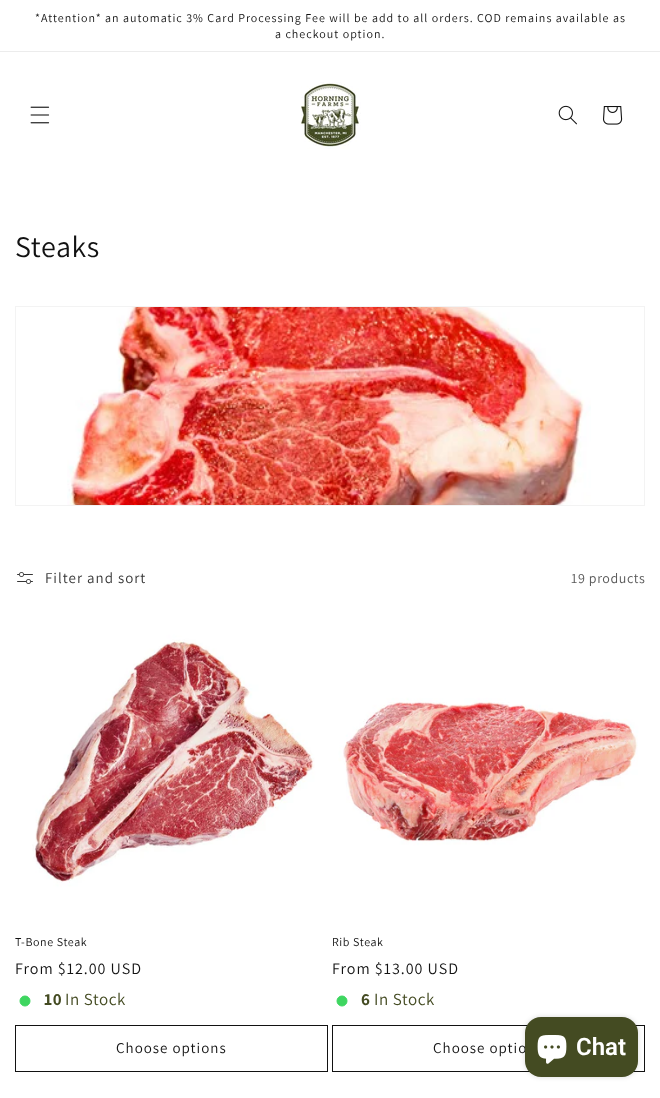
async function draw(canvas) {
	canvas.width = 660;
	canvas.height = 1098;
	const c = canvas.getContext('2d');
	c.miterLimit = 4;
	c.fontKerning = 'normal';
	async function loadImage(src) {
		const img = new Image();
		img.src = src;
		await img.decode();
		return img;
	}

	c.fillStyle = '#fff';
	c.fillRect(0, 0, 660, 1098);
	c.fillStyle = '#ececec';
	c.fillRect(0, 51, 660, 1);
	c.letterSpacing = '1px';
	c.font = '12px Assistant';
	c.fillStyle = '#121212';
	c.fillText('*Attention* an automatic 3% Card Processing Fee will be add to all orders. COD remains available as', 35, 22);
	c.fillText('a checkout option.', 275, 38);
	c.drawImage(await loadImage('img1.png'), 30, 106, 20, 18);
	c.drawImage(await loadImage('img2.png'), 300, 82, 61, 67);
	c.drawImage(await loadImage('img3.png'), 558, 105, 19, 20);
	c.drawImage(await loadImage('img4.png'), 603, 106, 20, 19);
	c.letterSpacing = '0.6px';
	c.font = '30px Assistant';
	c.fillText('Steaks', 15, 257);
	c.strokeStyle = '#f3f3f3';
	c.strokeRect(15.5, 306.5, 629, 199);
	c.drawImage(await loadImage('img5.png'), 67, 307, 524, 198);
	c.drawImage(await loadImage('img6.png'), 17, 572, 16, 12);
	c.letterSpacing = '1px';
	c.font = '15px Assistant';
	c.fillStyle = '#363636';
	c.fillText('Filter and sort', 45, 583);
	c.letterSpacing = '0.6px';
	c.font = '14px Assistant';
	c.fillStyle = '#595959';
	c.fillText('19 products', 571, 583);
	c.drawImage(await loadImage('img7.png'), 15, 608, 313, 313);
	c.font = '12px Assistant';
	c.fillStyle = '#121212';
	c.fillText('T-Bone Steak', 15, 946);
	c.letterSpacing = '1px';
	c.font = '16px Assistant';
	c.fillText('From $12.00 USD', 15, 974);
	c.fillStyle = '#3ed660';
	c.beginPath();
	c.arc(25, 1001, 5, 0, 2 * Math.PI);
	c.fill();
	c.strokeStyle = '#3ed660';
	c.stroke();
	c.letterSpacing = '0.6px';
	c.font = 'bold 17px Assistant';
	c.fillStyle = '#444b22';
	c.fillText('10', 44, 1005);
	c.font = '17px Assistant';
	c.fillText('In Stock', 65, 1005);
	c.strokeStyle = '#121212';
	c.strokeRect(15.5, 1025.5, 312, 46);
	c.letterSpacing = '1px';
	c.font = '15px Assistant';
	c.fillStyle = '#121212';
	c.fillText('Choose options', 116, 1053);
	c.drawImage(await loadImage('img8.png'), 332, 608, 313, 313);
	c.letterSpacing = '0.6px';
	c.font = '12px Assistant';
	c.fillText('Rib Steak', 332, 946);
	c.letterSpacing = '1px';
	c.font = '16px Assistant';
	c.fillText('From $13.00 USD', 332, 974);
	c.fillStyle = '#3ed660';
	c.beginPath();
	c.arc(342, 1001, 5, 0, 2 * Math.PI);
	c.fill();
	c.strokeStyle = '#3ed660';
	c.stroke();
	c.letterSpacing = '0.6px';
	c.font = 'bold 17px Assistant';
	c.fillStyle = '#444b22';
	c.fillText('6', 361, 1005);
	c.font = '17px Assistant';
	c.fillText('In Stock', 374, 1005);
	c.strokeStyle = '#121212';
	c.strokeRect(332.5, 1025.5, 312, 46);
	c.letterSpacing = '1px';
	c.font = '15px Assistant';
	c.fillStyle = '#121212';
	c.fillText('Choose optio', 433, 1053);
	c.fillStyle = '#00000026';
	c.filter = 'blur(2.5px)';
	c.beginPath();
	c.roundRect(525, 1017, 113, 60, 16);
	c.fill();
	c.filter = 'none';
	c.fillStyle = '#444b22';
	c.beginPath();
	c.roundRect(525, 1017, 113, 60, 16);
	c.fill();
	c.drawImage(await loadImage('img9.png'), 537, 1035, 30, 29);
	c.letterSpacing = '0px';
	c.font = '600 24px Roboto';
	c.fillStyle = '#fff';
	c.fillText('Chat', 576, 1055);
}

draw(document.querySelector('canvas'));
